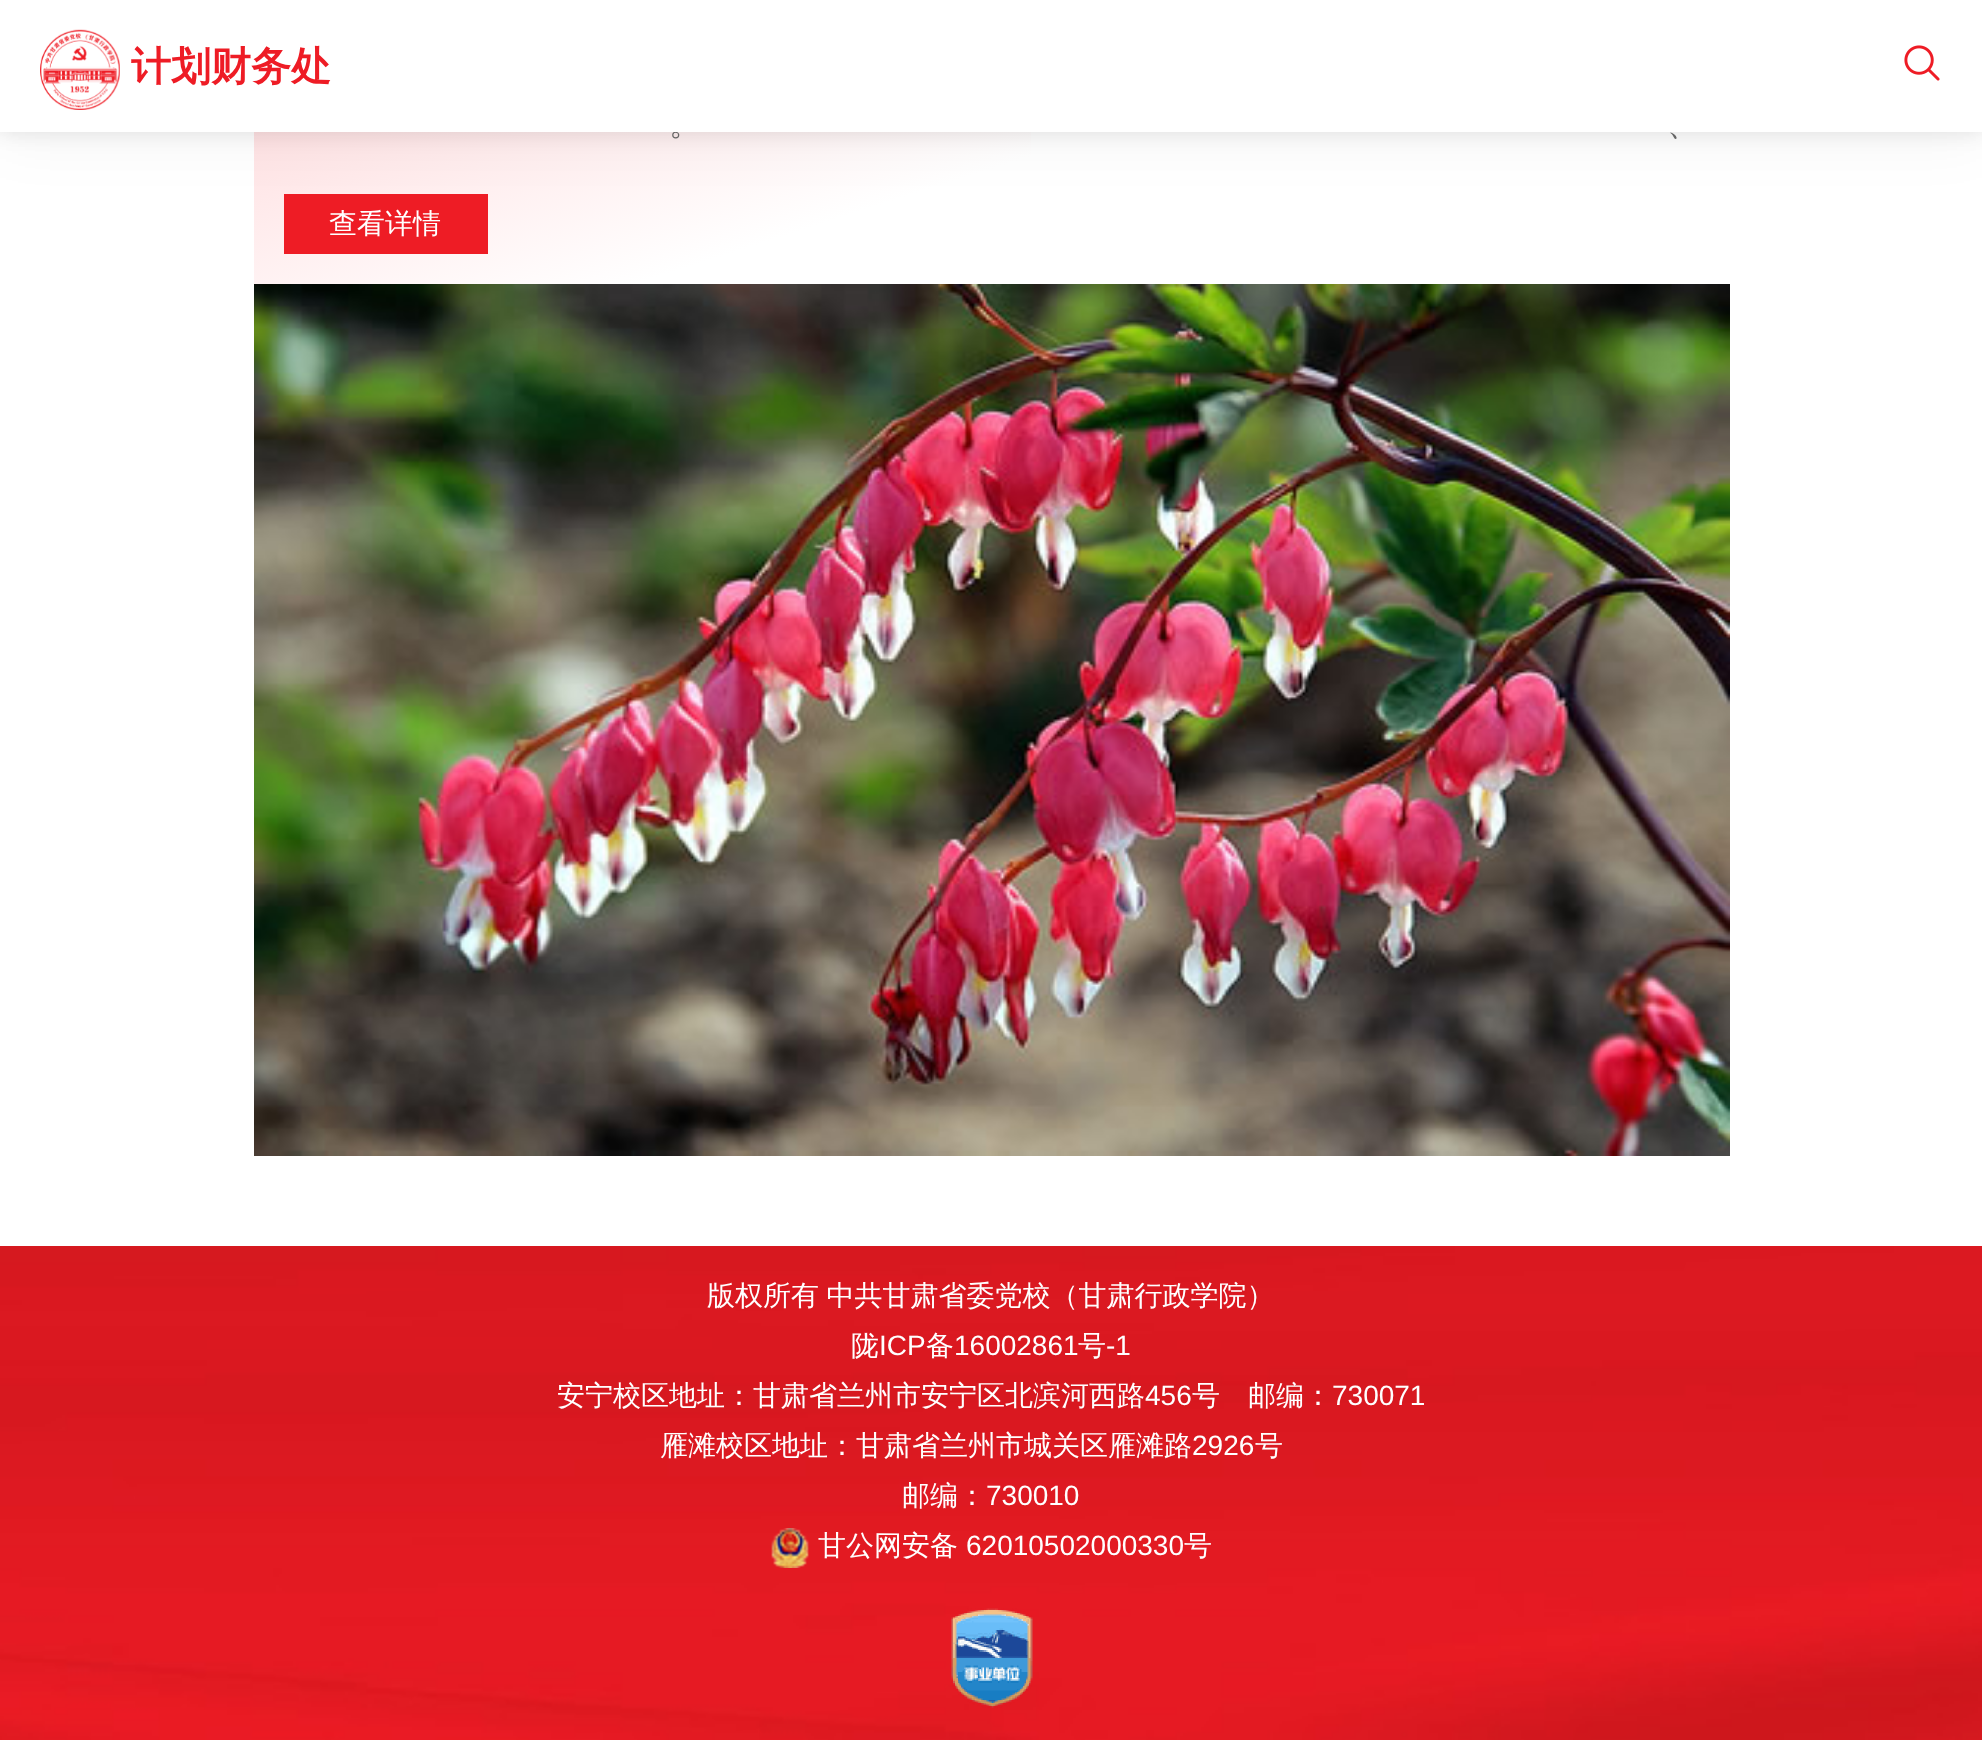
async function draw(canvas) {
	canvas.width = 1982;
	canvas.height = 1740;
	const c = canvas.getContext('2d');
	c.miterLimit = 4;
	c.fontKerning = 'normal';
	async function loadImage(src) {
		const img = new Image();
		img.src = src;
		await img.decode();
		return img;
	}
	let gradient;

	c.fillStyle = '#fff';
	c.fillRect(0, 0, 1982, 1740);
	gradient = c.createLinearGradient(1105, 487, 879, -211);
	gradient.addColorStop(0.46, '#fff');
	gradient.addColorStop(1, '#ffd3d5');
	c.fillStyle = gradient;
	c.fillRect(254, 132, 777, 152);
	c.fillStyle = '#ee1c25';
	c.fillRect(284, 194, 204, 60);
	c.fillStyle = '#0000000d';
	c.filter = 'blur(30px)';
	c.beginPath();
	c.rect(0, 8, 1982, 128);
	c.fill();
	c.filter = 'none';
	c.fillStyle = '#0000001a';
	c.filter = 'blur(10px)';
	c.beginPath();
	c.rect(0, 0, 1982, 132);
	c.fill();
	c.filter = 'none';
	c.font = '500 32px WenQuanYi Zen Hei';
	c.fillStyle = '#666';
	c.fillText('。', 669, 135);
	c.fillStyle = '#fff';
	c.fillRect(0, 0, 1982, 132);
	c.drawImage(await loadImage('img1.png'), 40, 29, 80, 81);
	c.font = 'bold 40px WenQuanYi Zen Hei';
	c.fillStyle = '#ee1c25';
	c.fillText('计划财务处', 131, 80);
	c.drawImage(await loadImage('img2.png'), 1904, 45, 36, 36);
	c.font = '500 32px WenQuanYi Zen Hei';
	c.fillStyle = '#666';
	c.fillText('、', 1667, 135);
	c.font = '500 28px WenQuanYi Zen Hei';
	c.fillStyle = '#fff';
	c.fillText('查看详情', 329, 233);
	c.drawImage(await loadImage('img3.png'), 254, 284, 1476, 872);
	c.drawImage(await loadImage('img4.png'), 0, 1246, 1982, 494);
	c.wordSpacing = '-1px';
	c.fillText('版权所有 中共甘肃省委党校（甘肃行政学院）', 707, 1305);
	c.wordSpacing = '0px';
	c.fillText('陇', 851, 1355);
	c.font = '28px Liberation Sans';
	c.fillText('ICP', 879, 1355);
	c.font = '500 28px WenQuanYi Zen Hei';
	c.fillText('备', 926, 1355);
	c.font = '28px Liberation Sans';
	c.fillText('16002861', 954, 1355);
	c.font = '500 28px WenQuanYi Zen Hei';
	c.fillText('号', 1078, 1355);
	c.font = '28px Liberation Sans';
	c.fillText('-1', 1106, 1355);
	c.font = '500 28px WenQuanYi Zen Hei';
	c.fillText('安宁校区地址：甘肃省兰州市安宁区北滨河西路', 557, 1405);
	c.font = '28px Liberation Sans';
	c.fillText('456', 1145, 1405);
	c.font = '500 28px WenQuanYi Zen Hei';
	c.fillText('号　邮编：', 1192, 1405);
	c.font = '28px Liberation Sans';
	c.fillText('730071', 1332, 1405);
	c.font = '500 28px WenQuanYi Zen Hei';
	c.fillText('雁滩校区地址：甘肃省兰州市城关区雁滩路', 660, 1455);
	c.font = '28px Liberation Sans';
	c.fillText('2926', 1192, 1455);
	c.font = '500 28px WenQuanYi Zen Hei';
	c.fillText('号', 1255, 1455);
	c.fillText('邮编：', 902, 1505);
	c.font = '28px Liberation Sans';
	c.fillText('730010', 986, 1505);
	c.drawImage(await loadImage('img5.png'), 771, 1528, 38, 40);
	c.font = '500 28px WenQuanYi Zen Hei';
	c.fillText('甘公网安备', 818, 1555);
	c.font = '28px Liberation Sans';
	c.fillText('62010502000330', 966, 1555);
	c.font = '500 28px WenQuanYi Zen Hei';
	c.fillText('号', 1184, 1555);
	c.drawImage(await loadImage('img6.png'), 951, 1608, 82, 100);
}

draw(document.querySelector('canvas'));
